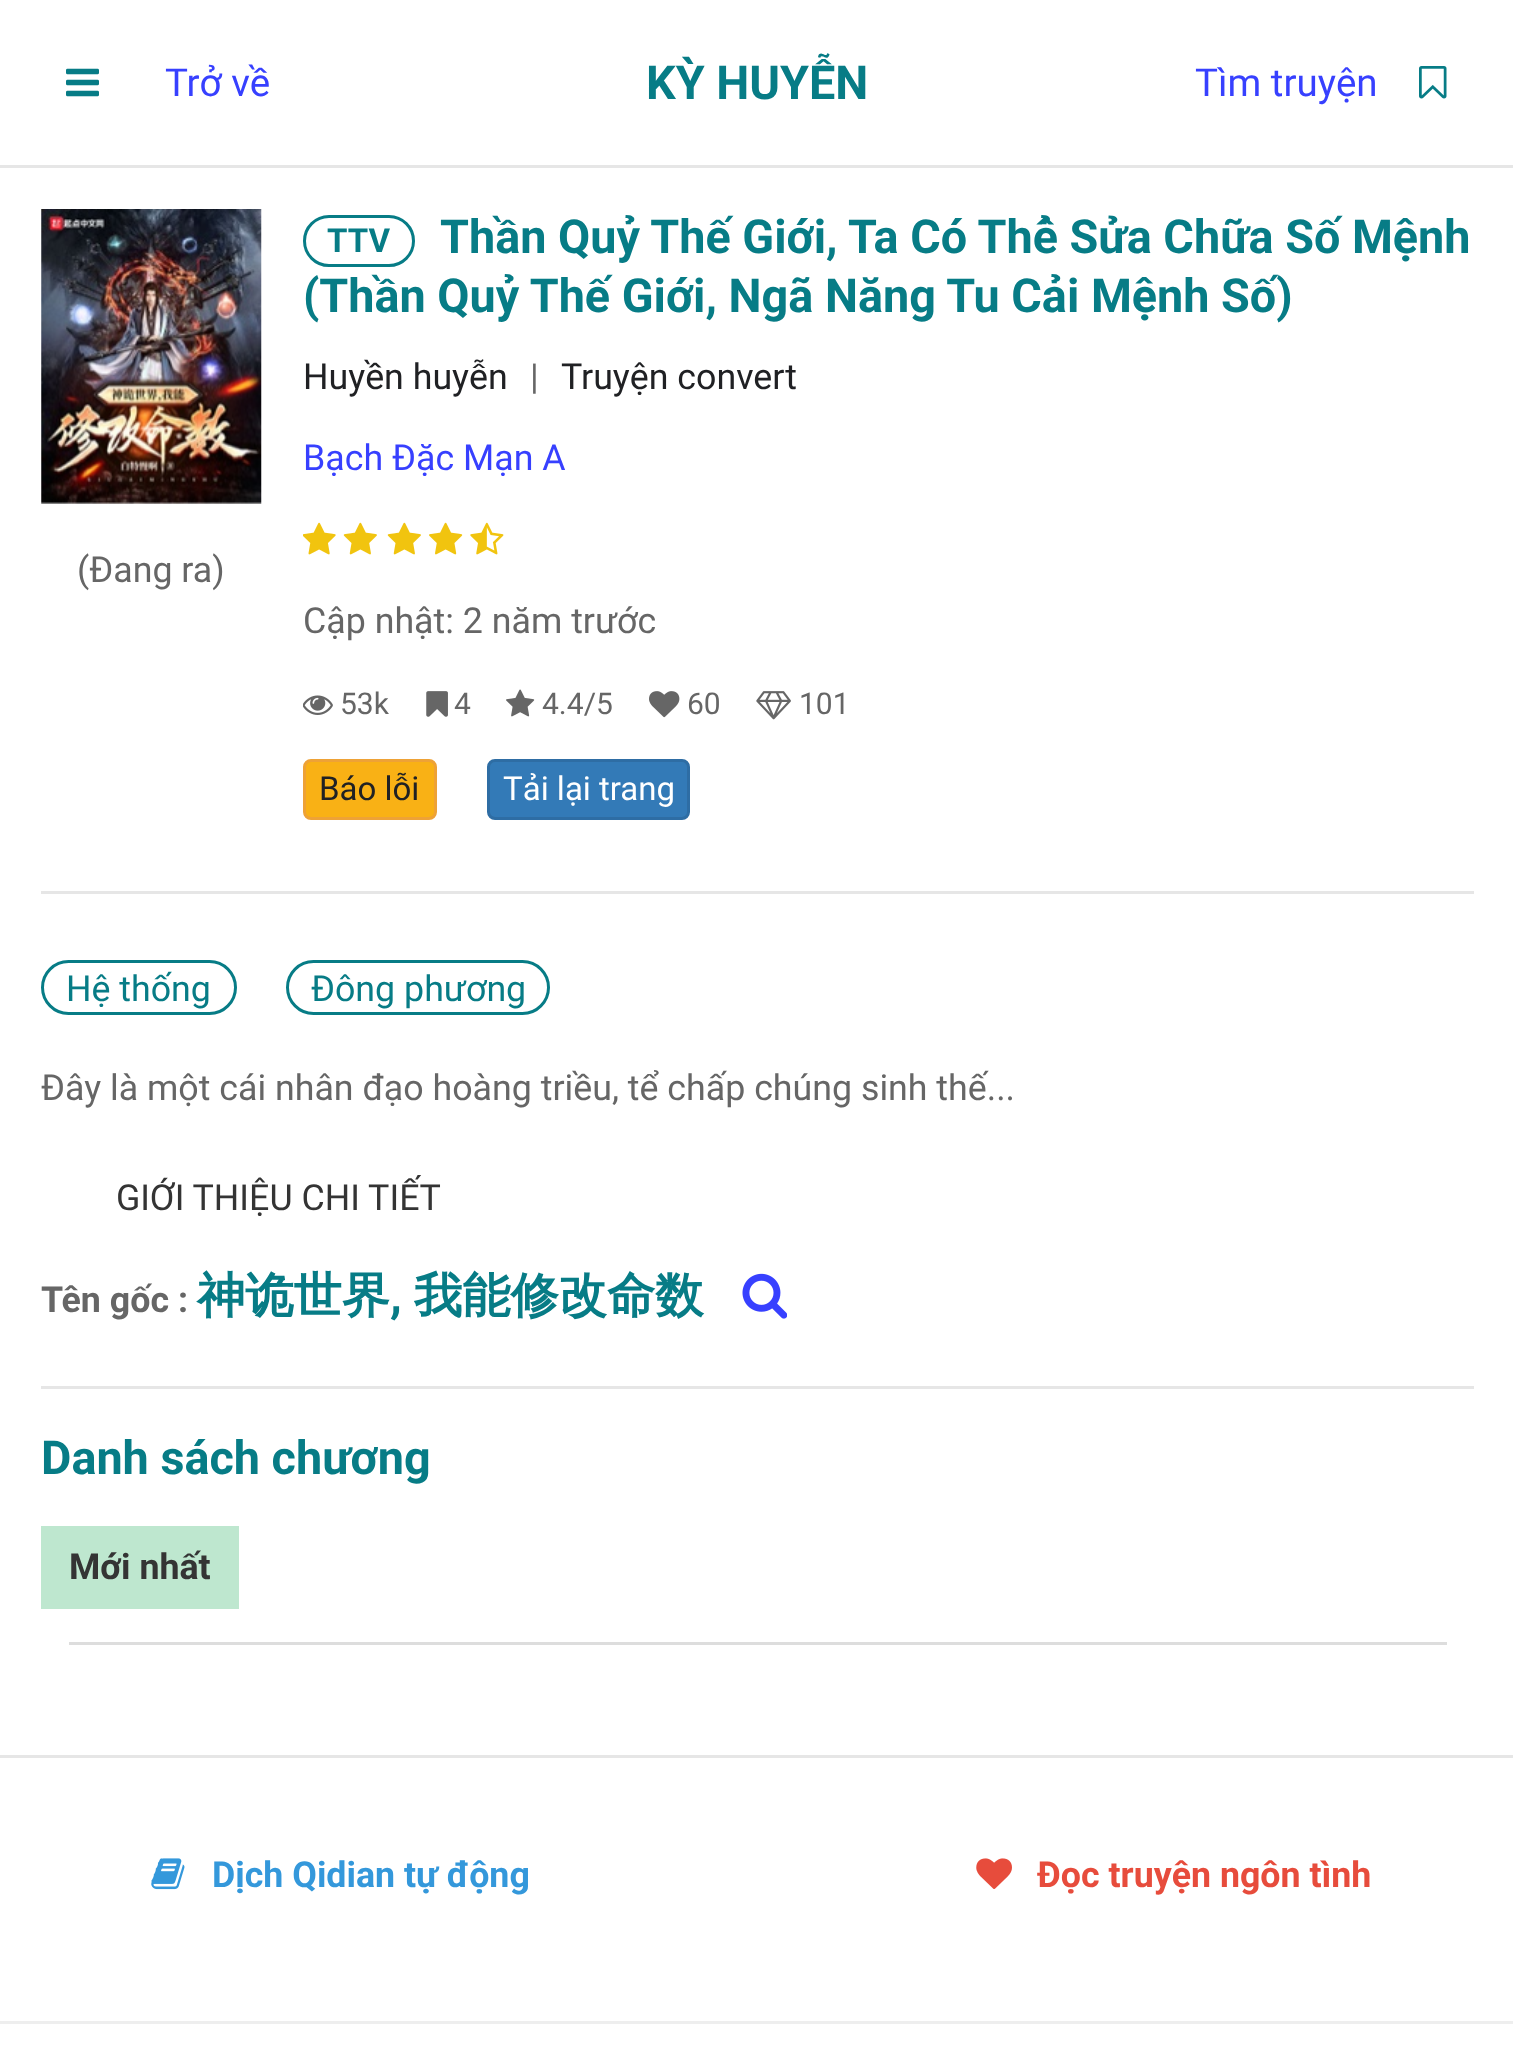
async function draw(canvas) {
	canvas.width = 1513;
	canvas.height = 2068;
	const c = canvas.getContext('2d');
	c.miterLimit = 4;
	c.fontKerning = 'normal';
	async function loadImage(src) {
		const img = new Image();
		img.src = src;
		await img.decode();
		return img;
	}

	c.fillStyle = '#fff';
	c.fillRect(0, 0, 1513, 2068);
	c.drawImage(await loadImage('img1.png'), 66, 68, 33, 29);
	c.font = '38.5px Roboto';
	c.fillStyle = '#3740ff';
	c.fillText('Trở về', 165, 96);
	c.font = 'bold 46.75px Roboto';
	c.fillStyle = '#077c86';
	c.fillText('KỲ HUYỄN', 646, 99);
	c.font = '38.5px Roboto';
	c.fillStyle = '#3740ff';
	c.fillText('Tìm truyện', 1195, 96);
	c.drawImage(await loadImage('img2.png'), 1419, 66, 28, 33);
	c.fillStyle = '#e6e6e6';
	c.fillRect(0, 165, 1513, 3);
	c.drawImage(await loadImage('img3.png'), 41, 209, 221, 295);
	c.font = '35.75px Roboto';
	c.fillStyle = '#666';
	c.fillText('(Đang ra)', 77, 582);
	c.beginPath();
	c.roundRect(304.5, 216.5, 109, 49, 24.5);
	c.strokeStyle = '#077c86';
	c.lineWidth = 3;
	c.stroke();
	c.font = 'bold 33px Roboto';
	c.fillStyle = '#077c86';
	c.fillText('TTV', 327, 252);
	c.font = 'bold 46.75px Roboto';
	c.fillText('Thần Quỷ Thế Giới, Ta Có Thể Sửa Chữa Số Mệnh', 440, 253);
	c.fillText('(Thần Quỷ Thế Giới, Ngã Năng Tu Cải Mệnh Số)', 303, 312);
	c.font = '35.75px Roboto';
	c.fillStyle = '#202124';
	c.fillText('Huyền huyễn', 303, 389);
	c.fillStyle = '#666';
	c.fillText('|', 530, 389);
	c.fillStyle = '#202124';
	c.fillText('Truyện convert', 561, 389);
	c.fillStyle = '#3740ff';
	c.fillText('Bạch Đặc Mạn A', 303, 470);
	c.drawImage(await loadImage('img4.png'), 303, 522, 33, 33);
	c.drawImage(await loadImage('img5.png'), 343, 522, 34, 33);
	c.drawImage(await loadImage('img5.png'), 387, 522, 34, 33);
	c.drawImage(await loadImage('img6.png'), 429, 522, 34, 33);
	c.drawImage(await loadImage('img7.png'), 470, 522, 34, 33);
	c.fillStyle = '#666';
	c.fillText('Cập nhật: 2 năm trước', 303, 633);
	c.drawImage(await loadImage('img8.png'), 303, 695, 30, 20);
	c.font = '30px Roboto';
	c.fillText('53k', 340, 714);
	c.drawImage(await loadImage('img9.png'), 426, 691, 22, 26);
	c.fillText('4', 454, 714);
	c.drawImage(await loadImage('img10.png'), 506, 689, 29, 28);
	c.fillText('4.4/5', 542, 714);
	c.drawImage(await loadImage('img11.png'), 649, 691, 31, 27);
	c.fillText('60', 687, 714);
	c.drawImage(await loadImage('img12.png'), 756, 691, 35, 29);
	c.fillText('101', 799, 714);
	c.fillStyle = '#f9b115';
	c.beginPath();
	c.roundRect(304.5, 760.5, 131, 58, 6.5);
	c.fill();
	c.strokeStyle = '#eea236';
	c.stroke();
	c.font = '33px Roboto';
	c.fillStyle = '#202124';
	c.fillText('Báo lỗi', 319, 800);
	c.fillStyle = '#337ab7';
	c.beginPath();
	c.roundRect(488.5, 760.5, 200, 58, 6.5);
	c.fill();
	c.strokeStyle = '#2e6da4';
	c.stroke();
	c.fillStyle = '#fff';
	c.fillText('Tải lại trang', 503, 800);
	c.fillStyle = '#e6e6e6';
	c.fillRect(41, 891, 1433, 3);
	c.beginPath();
	c.roundRect(42.5, 961.5, 193, 52, 26);
	c.strokeStyle = '#077c86';
	c.stroke();
	c.font = '35.75px Roboto';
	c.fillStyle = '#077c86';
	c.fillText('Hệ thống', 66, 1001);
	c.beginPath();
	c.roundRect(287.5, 961.5, 261, 52, 26);
	c.stroke();
	c.fillText('Đông phương', 311, 1001);
	c.fillStyle = '#666';
	c.fillText('Đây là một cái nhân đạo hoàng triều, tể chấp chúng sinh thế...', 41, 1100);
	c.fillStyle = '#343434';
	c.fillText('GIỚI THIỆU CHI TIẾT', 116, 1210);
	c.font = 'bold 35.75px Roboto';
	c.fillStyle = '#666';
	c.fillText('Tên gốc :', 41, 1312);
	c.font = 'bold 48.25px WenQuanYi Zen Hei';
	c.fillStyle = '#077c86';
	c.fillText('神诡世界', 197, 1312);
	c.font = 'bold 48.25px Roboto';
	c.fillText(',', 390, 1312);
	c.font = 'bold 48.25px WenQuanYi Zen Hei';
	c.fillText('我能修改命数', 414, 1312);
	c.drawImage(await loadImage('img13.png'), 742, 1273, 45, 46);
	c.fillStyle = '#e6e6e6';
	c.fillRect(41, 1386, 1433, 3);
	c.font = 'bold 46.75px Roboto';
	c.fillStyle = '#077c86';
	c.fillText('Danh sách chương', 41, 1474);
	c.fillStyle = '#bee7cf';
	c.fillRect(41, 1526, 198, 83);
	c.font = 'bold 35.75px Roboto';
	c.fillStyle = '#343434';
	c.fillText('Mới nhất', 69, 1579);
	c.fillStyle = '#ddd';
	c.fillRect(69, 1642, 1378, 3);
	c.fillStyle = '#e6e6e6';
	c.fillRect(0, 1755, 1513, 3);
	c.drawImage(await loadImage('img14.png'), 151, 1858, 34, 32);
	c.fillStyle = '#3498db';
	c.fillText('Dịch Qidian tự động', 212, 1887);
	c.drawImage(await loadImage('img15.png'), 976, 1858, 36, 31);
	c.fillStyle = '#e74c3c';
	c.fillText('Đọc truyện ngôn tình', 1037, 1887);
	c.fillStyle = '#eee';
	c.fillRect(0, 2021, 1513, 3);
}

draw(document.querySelector('canvas'));
